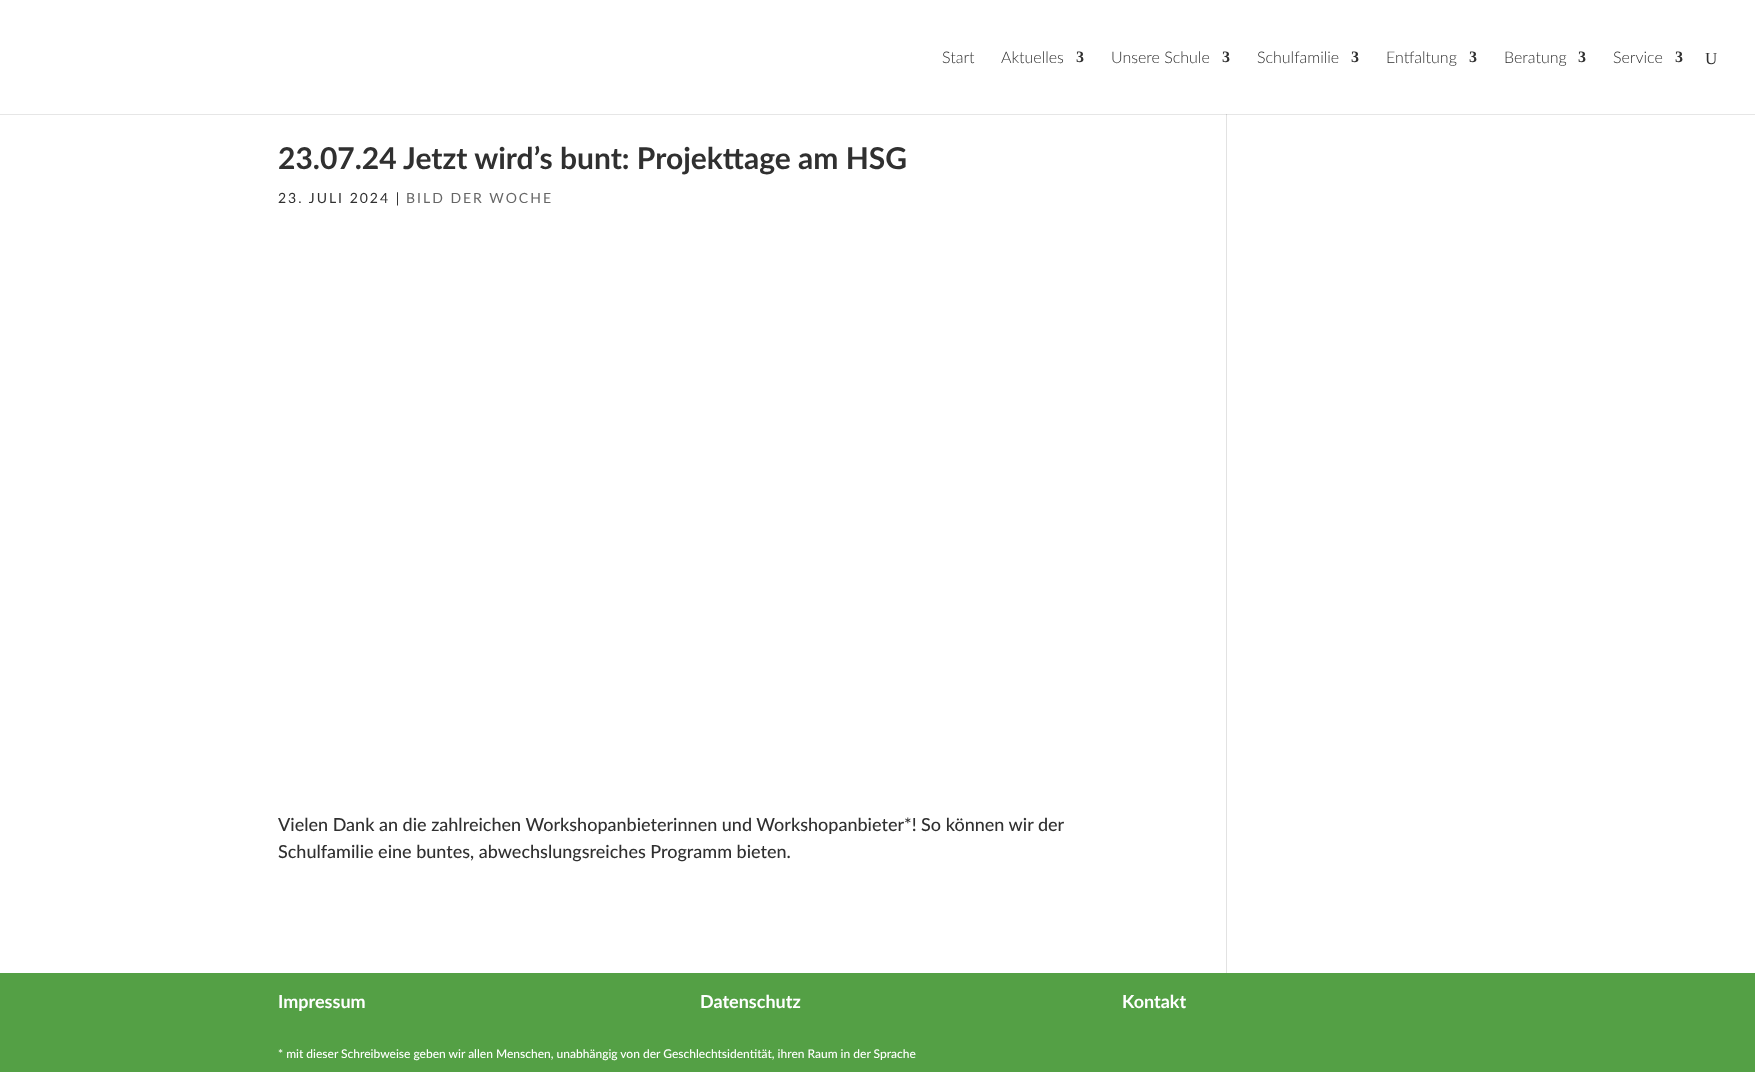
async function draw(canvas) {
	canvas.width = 1755;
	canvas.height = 1072;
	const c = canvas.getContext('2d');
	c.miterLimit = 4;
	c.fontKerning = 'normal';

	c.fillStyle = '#fff';
	c.fillRect(0, 0, 1755, 1072);
	c.fillStyle = '#e6e6e6';
	c.fillRect(0, 114, 1755, 1);
	c.font = '300 16px Lato';
	c.fillStyle = '#303030';
	c.fillText('Start', 942, 63);
	c.fillText('Aktuelles', 1001, 63);
	c.font = 'bold 16px Liberation Serif';
	c.fillText('3', 1076, 62);
	c.font = '300 16px Lato';
	c.fillText('Unsere Schule', 1111, 63);
	c.font = 'bold 16px Liberation Serif';
	c.fillText('3', 1222, 62);
	c.font = '300 16px Lato';
	c.fillText('Schulfamilie', 1257, 63);
	c.font = 'bold 16px Liberation Serif';
	c.fillText('3', 1351, 62);
	c.font = '300 16px Lato';
	c.fillText('Entfaltung', 1386, 63);
	c.font = 'bold 16px Liberation Serif';
	c.fillText('3', 1469, 62);
	c.font = '300 16px Lato';
	c.fillText('Beratung', 1504, 63);
	c.font = 'bold 16px Liberation Serif';
	c.fillText('3', 1578, 62);
	c.font = '300 16px Lato';
	c.fillText('Service', 1613, 63);
	c.font = 'bold 16px Liberation Serif';
	c.fillText('3', 1675, 62);
	c.font = '17px Liberation Serif';
	c.fillText('U', 1705, 64);
	c.font = 'bold 30px Lato';
	c.fillText('23.07.24 Jetzt wird’s bunt: Projekttage am HSG', 278, 169);
	c.letterSpacing = '2px';
	c.font = '14px Lato';
	c.fillText('23. JULI 2024 |', 278, 203);
	c.fillStyle = '#666';
	c.fillText('BILD DER WOCHE', 406, 203);
	c.letterSpacing = '0px';
	c.font = '500 18px Lato';
	c.fillStyle = '#303030';
	c.fillText('Vielen Dank an die zahlreichen Workshopanbieterinnen und Workshopanbieter*! So können wir der', 278, 831);
	c.fillText('Schulfamilie eine buntes, abwechslungsreiches Programm bieten.', 278, 858);
	for (const [x, y, w, h, color] of [
		[1226, 115, 1, 858, '#e2e2e2'],
		[1226, 114, 1, 1, '#cbcbcb'],
		[0, 973, 1755, 99, '#54a045'],
	]) {
		c.fillStyle = color;
		c.fillRect(x, y, w, h);
	}
	c.font = 'bold 18px Lato';
	c.fillStyle = '#fff';
	for (const [text, x, y] of [
		['Impressum', 278, 1008],
		['Datenschutz', 700, 1008],
		['Kontakt', 1122, 1008],
	]) {
		c.fillText(text, x, y);
	}
	c.font = '500 12px Lato';
	c.fillText('* mit dieser Schreibweise geben wir allen Menschen, unabhängig von der Geschlechtsidentität, ihren Raum in der Sprache', 278, 1058);
}

draw(document.querySelector('canvas'));
